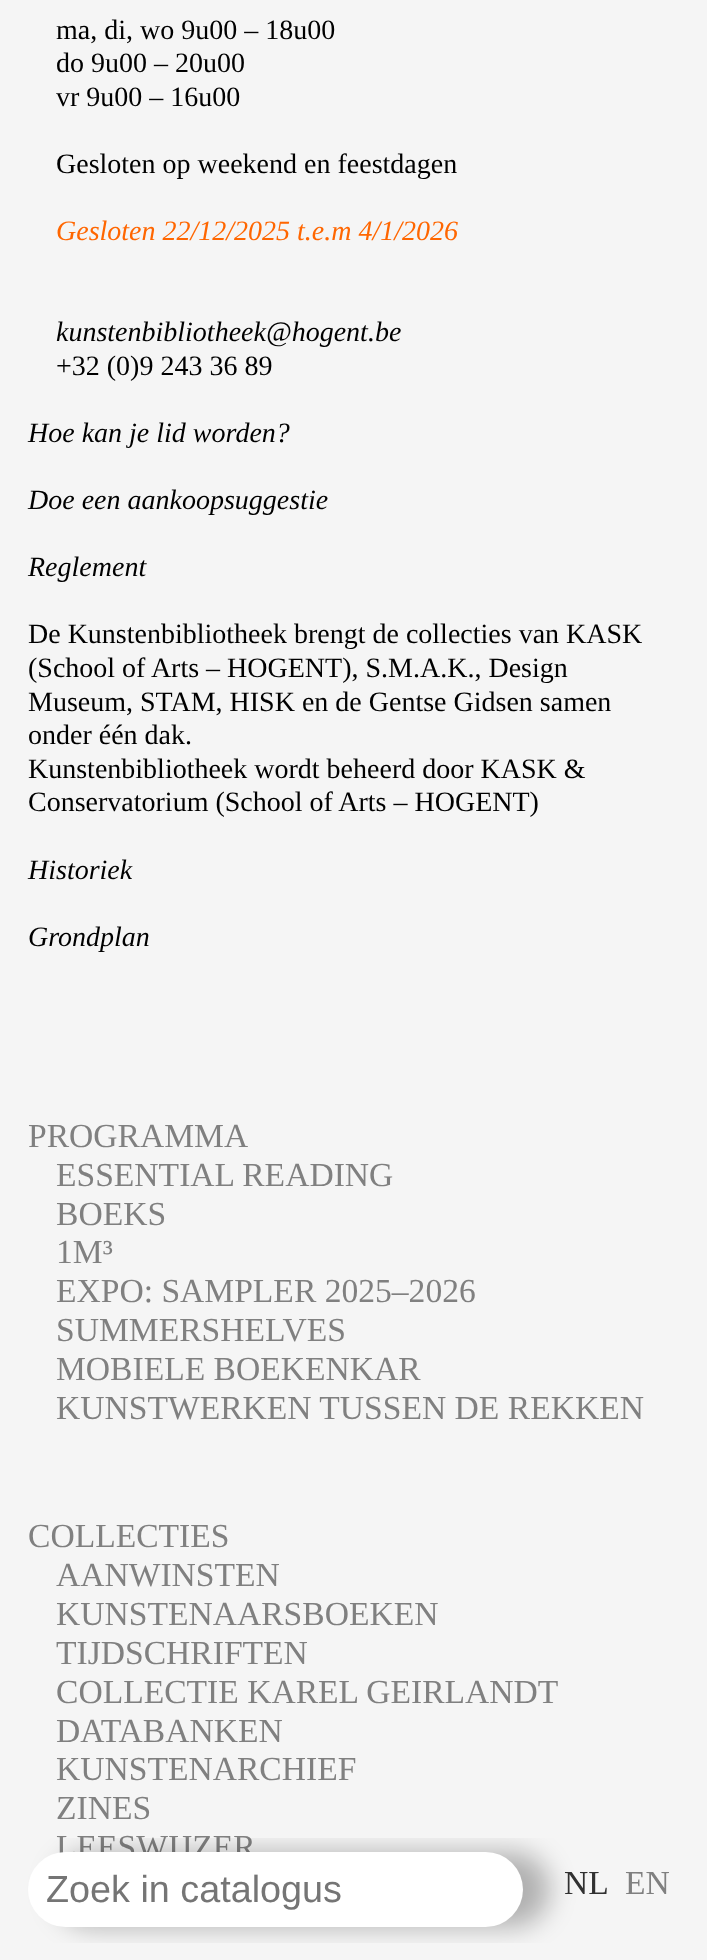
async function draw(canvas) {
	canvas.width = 707;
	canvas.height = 1960;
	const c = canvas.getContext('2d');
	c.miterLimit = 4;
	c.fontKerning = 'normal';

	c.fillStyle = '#f5f5f5';
	c.fillRect(0, 0, 707, 1960);
	c.font = '28px Liberation Serif';
	c.fillStyle = '#000';
	for (const [text, x, y] of [
		['ma, di, wo 9u00 – 18u00', 56, 39],
		['do 9u00 – 20u00', 56, 72],
		['vr 9u00 – 16u00', 56, 106],
		['Gesloten op weekend en feestdagen', 56, 173],
	]) {
		c.fillText(text, x, y);
	}
	c.font = 'italic 28px Liberation Serif';
	c.fillStyle = '#f60';
	c.fillText('Gesloten 22/12/2025 t.e.m 4/1/2026', 56, 240);
	c.fillStyle = '#000';
	c.fillText('kunstenbibliotheek@hogent.be', 56, 341);
	c.font = '28px Liberation Serif';
	c.fillText('+32 (0)9 243 36 89', 56, 375);
	c.font = 'italic 28px Liberation Serif';
	for (const [text, x, y] of [
		['Hoe kan je lid worden?', 28, 442],
		['Doe een aankoopsuggestie', 28, 509],
		['Reglement', 28, 576],
	]) {
		c.fillText(text, x, y);
	}
	c.font = '28px Liberation Serif';
	for (const [text, x, y] of [
		['De Kunstenbibliotheek brengt de collecties van KASK', 28, 643],
		['(School of Arts – HOGENT), S.M.A.K., Design', 28, 677],
		['Museum, STAM, HISK en de Gentse Gidsen samen', 28, 711],
		['onder één dak.', 28, 744],
		['Kunstenbibliotheek wordt beheerd door KASK &', 28, 778],
		['Conservatorium (School of Arts – HOGENT)', 28, 811],
	]) {
		c.fillText(text, x, y);
	}
	c.font = 'italic 28px Liberation Serif';
	c.fillText('Historiek', 28, 879);
	c.fillText('Grondplan', 28, 946);
	c.font = '33.6px Liberation Serif';
	c.fillStyle = '#808080';
	for (const [text, x, y] of [
		['PROGRAMMA', 28, 1147],
		['ESSENTIAL READING', 56, 1186],
		['BOEKS', 56, 1225],
		['1M³', 56, 1263],
		['EXPO: SAMPLER 2025–2026', 56, 1302],
		['SUMMERSHELVES', 56, 1341],
		['MOBIELE BOEKENKAR', 56, 1380],
		['KUNSTWERKEN TUSSEN DE REKKEN', 56, 1419],
		['COLLECTIES', 28, 1547],
		['AANWINSTEN', 56, 1586],
		['KUNSTENAARSBOEKEN', 56, 1625],
		['TIJDSCHRIFTEN', 56, 1664],
		['COLLECTIE KAREL GEIRLANDT', 56, 1703],
		['DATABANKEN', 56, 1742],
		['KUNSTENARCHIEF', 56, 1780],
		['ZINES', 56, 1819],
		['LEESWIJZER', 56, 1858],
	]) {
		c.fillText(text, x, y);
	}
	c.save();
	c.beginPath();
	c.rect(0, 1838, 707, 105);
	c.clip();
	c.fillStyle = '#00000047';
	c.filter = 'blur(13px)';
	c.beginPath();
	c.roundRect(54, 1852, 496, 75, 37.5);
	c.fill();
	c.filter = 'none';
	c.restore();
	c.fillStyle = '#fff';
	c.beginPath();
	c.roundRect(28, 1852, 495, 75, 37.5);
	c.fill();
	c.font = '37.75px Liberation Sans';
	c.fillStyle = '#757575';
	c.fillText('Zoek in catalogus', 46, 1902);
	c.font = '33.6px Liberation Serif';
	c.fillStyle = '#313131';
	c.fillText('NL', 564, 1894);
	c.fillStyle = '#808080';
	c.fillText('EN', 625, 1894);
}

draw(document.querySelector('canvas'));
